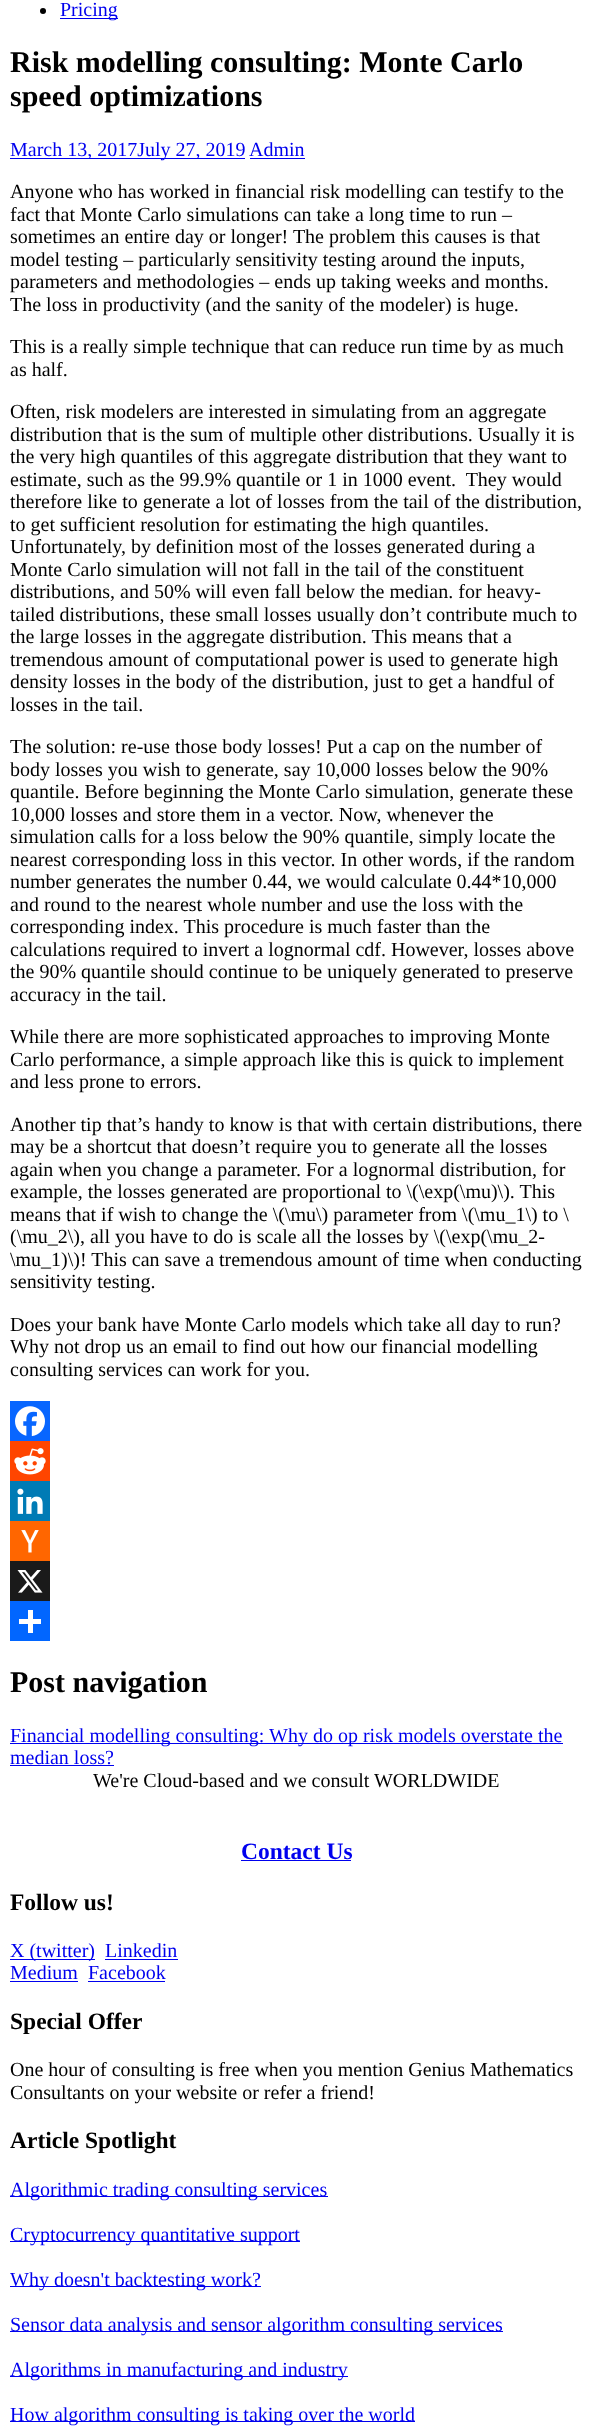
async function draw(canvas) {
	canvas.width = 592;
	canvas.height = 2430;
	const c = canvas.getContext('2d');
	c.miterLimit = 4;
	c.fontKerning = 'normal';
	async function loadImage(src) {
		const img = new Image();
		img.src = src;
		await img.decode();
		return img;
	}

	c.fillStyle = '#fff';
	c.fillRect(0, 0, 592, 2430);
	c.fillStyle = '#000';
	c.beginPath();
	c.arc(43, 11, 3, 0, 2 * Math.PI);
	c.fill();
	c.fillStyle = '#00e';
	c.fillRect(60, 18, 58, 1);
	c.font = '20px Liberation Serif';
	c.fillText('Pricing', 60, 16);
	c.font = 'bold 30px Liberation Serif';
	c.fillStyle = '#000';
	c.fillText('Risk modelling consulting: Monte Carlo', 10, 72);
	c.fillText('speed optimizations', 10, 106);
	c.fillStyle = '#00e';
	c.fillRect(10, 158, 235, 1);
	c.font = '20px Liberation Serif';
	c.fillText('March 13, 2017July 27, 2019', 10, 156);
	c.fillText('Admin', 249, 156);
	c.fillRect(250, 158, 55, 1);
	c.fillStyle = '#000';
	for (const [text, x, y] of [
		['Anyone who has worked in financial risk modelling can testify to the', 10, 198],
		['fact that Monte Carlo simulations can take a long time to run –', 10, 221],
		['sometimes an entire day or longer! The problem this causes is that', 10, 243],
		['model testing – particularly sensitivity testing around the inputs,', 10, 266],
		['parameters and methodologies – ends up taking weeks and months.', 10, 288],
		['The loss in productivity (and the sanity of the modeler) is huge.', 10, 311],
		['This is a really simple technique that can reduce run time by as much', 10, 353],
		['as half.', 10, 376],
		['Often, risk modelers are interested in simulating from an aggregate', 10, 418],
		['distribution that is the sum of multiple other distributions. Usually it is', 10, 441],
		['the very high quantiles of this aggregate distribution that they want to', 10, 463],
		['estimate, such as the 99.9% quantile or 1 in 1000 event.  They would', 10, 486],
		['therefore like to generate a lot of losses from the tail of the distribution,', 10, 508],
		['to get sufficient resolution for estimating the high quantiles.', 10, 531],
		['Unfortunately, by definition most of the losses generated during a', 10, 553],
		['Monte Carlo simulation will not fall in the tail of the constituent', 10, 576],
		['distributions, and 50% will even fall below the median. for heavy-', 10, 598],
		['tailed distributions, these small losses usually don’t contribute much to', 10, 621],
		['the large losses in the aggregate distribution. This means that a', 10, 643],
		['tremendous amount of computational power is used to generate high', 10, 666],
		['density losses in the body of the distribution, just to get a handful of', 10, 688],
		['losses in the tail.', 10, 711],
		['The solution: re-use those body losses! Put a cap on the number of', 10, 753],
		['body losses you wish to generate, say 10,000 losses below the 90%', 10, 776],
		['quantile. Before beginning the Monte Carlo simulation, generate these', 10, 798],
		['10,000 losses and store them in a vector. Now, whenever the', 10, 821],
		['simulation calls for a loss below the 90% quantile, simply locate the', 10, 843],
		['nearest corresponding loss in this vector. In other words, if the random', 10, 866],
		['number generates the number 0.44, we would calculate 0.44*10,000', 10, 888],
		['and round to the nearest whole number and use the loss with the', 10, 911],
		['corresponding index. This procedure is much faster than the', 10, 933],
		['calculations required to invert a lognormal cdf. However, losses above', 10, 956],
		['the 90% quantile should continue to be uniquely generated to preserve', 10, 978],
		['accuracy in the tail.', 10, 1001],
		['While there are more sophisticated approaches to improving Monte', 10, 1043],
		['Carlo performance, a simple approach like this is quick to implement', 10, 1066],
		['and less prone to errors.', 10, 1088],
		['Another tip that’s handy to know is that with certain distributions, there', 10, 1131],
		['may be a shortcut that doesn’t require you to generate all the losses', 10, 1153],
		['again when you change a parameter. For a lognormal distribution, for', 10, 1176],
		['example, the losses generated are proportional to \\(\\exp(\\mu)\\). This', 10, 1198],
		['means that if wish to change the \\(\\mu\\) parameter from \\(\\mu_1\\) to \\', 10, 1221],
		['(\\mu_2\\), all you have to do is scale all the losses by \\(\\exp(\\mu_2-', 10, 1243],
		['\\mu_1)\\)! This can save a tremendous amount of time when conducting', 10, 1266],
		['sensitivity testing.', 10, 1288],
		['Does your bank have Monte Carlo models which take all day to run?', 10, 1331],
		['Why not drop us an email to find out how our financial modelling', 10, 1353],
		['consulting services can work for you.', 10, 1376],
	]) {
		c.fillText(text, x, y);
	}
	c.fillStyle = '#0866ff';
	c.fillRect(10, 1401, 40, 40);
	c.drawImage(await loadImage('img1.png'), 15, 1406, 30, 31);
	c.fillStyle = '#ff4500';
	c.fillRect(10, 1441, 40, 40);
	c.drawImage(await loadImage('img2.png'), 14, 1448, 32, 27);
	c.fillStyle = '#007bb5';
	c.fillRect(10, 1481, 40, 40);
	c.drawImage(await loadImage('img3.png'), 17, 1488, 26, 26);
	c.fillStyle = '#f60';
	c.fillRect(10, 1521, 40, 40);
	c.drawImage(await loadImage('img4.png'), 21, 1530, 18, 23);
	c.fillStyle = '#1a1a1a';
	c.fillRect(10, 1561, 40, 40);
	c.drawImage(await loadImage('img5.png'), 17, 1570, 26, 23);
	for (const [x, y, w, h, color] of [
		[10, 1601, 40, 40, '#0166ff'],
		[28, 1610, 5, 23, '#fff'],
		[19, 1619, 22, 5, '#fff'],
	]) {
		c.fillStyle = color;
		c.fillRect(x, y, w, h);
	}
	c.font = 'bold 30px Liberation Serif';
	c.fillStyle = '#000';
	c.fillText('Post navigation', 10, 1692);
	c.fillStyle = '#00e';
	c.fillRect(10, 1743, 553, 1);
	c.font = '20px Liberation Serif';
	c.fillText('Financial modelling consulting: Why do op risk models overstate the', 10, 1742);
	c.fillText('median loss?', 10, 1764);
	c.fillRect(10, 1765, 104, 1);
	c.fillStyle = '#000';
	c.fillText('We\'re Cloud-based and we consult WORLDWIDE', 93, 1787);
	c.font = 'bold 23.5px Liberation Serif';
	c.fillStyle = '#00e';
	c.fillText('Contact Us', 241, 1859);
	c.fillRect(241, 1860, 110, 1);
	c.fillStyle = '#000';
	c.fillText('Follow us!', 10, 1910);
	c.fillStyle = '#00e';
	c.fillRect(10, 1959, 85, 1);
	c.font = '20px Liberation Serif';
	c.fillText('X (twitter)', 10, 1957);
	c.fillText('Linkedin', 105, 1957);
	c.fillRect(105, 1959, 73, 1);
	c.fillText('Medium', 10, 1979);
	c.fillRect(10, 1981, 68, 1);
	c.fillText('Facebook', 88, 1979);
	c.fillRect(88, 1981, 77, 1);
	c.font = 'bold 23.5px Liberation Serif';
	c.fillStyle = '#000';
	c.fillText('Special Offer', 10, 2029);
	c.font = '20px Liberation Serif';
	c.fillText('One hour of consulting is free when you mention Genius Mathematics', 10, 2076);
	c.fillText('Consultants on your website or refer a friend!', 10, 2099);
	c.font = 'bold 23.5px Liberation Serif';
	c.fillText('Article Spotlight', 10, 2148);
	c.fillStyle = '#00e';
	c.fillRect(10, 2196, 318, 1);
	c.font = '20px Liberation Serif';
	c.fillText('Algorithmic trading consulting services', 10, 2196);
	c.fillRect(10, 2241, 290, 1);
	c.fillText('Cryptocurrency quantitative support', 10, 2241);
	c.fillRect(10, 2286, 251, 1);
	c.fillText('Why doesn\'t backtesting work?', 10, 2286);
	c.fillRect(10, 2331, 493, 1);
	c.fillText('Sensor data analysis and sensor algorithm consulting services', 10, 2331);
	c.fillRect(10, 2376, 338, 1);
	c.fillText('Algorithms in manufacturing and industry', 10, 2376);
	c.fillRect(10, 2421, 405, 1);
	c.fillText('How algorithm consulting is taking over the world', 10, 2421);
}

draw(document.querySelector('canvas'));
